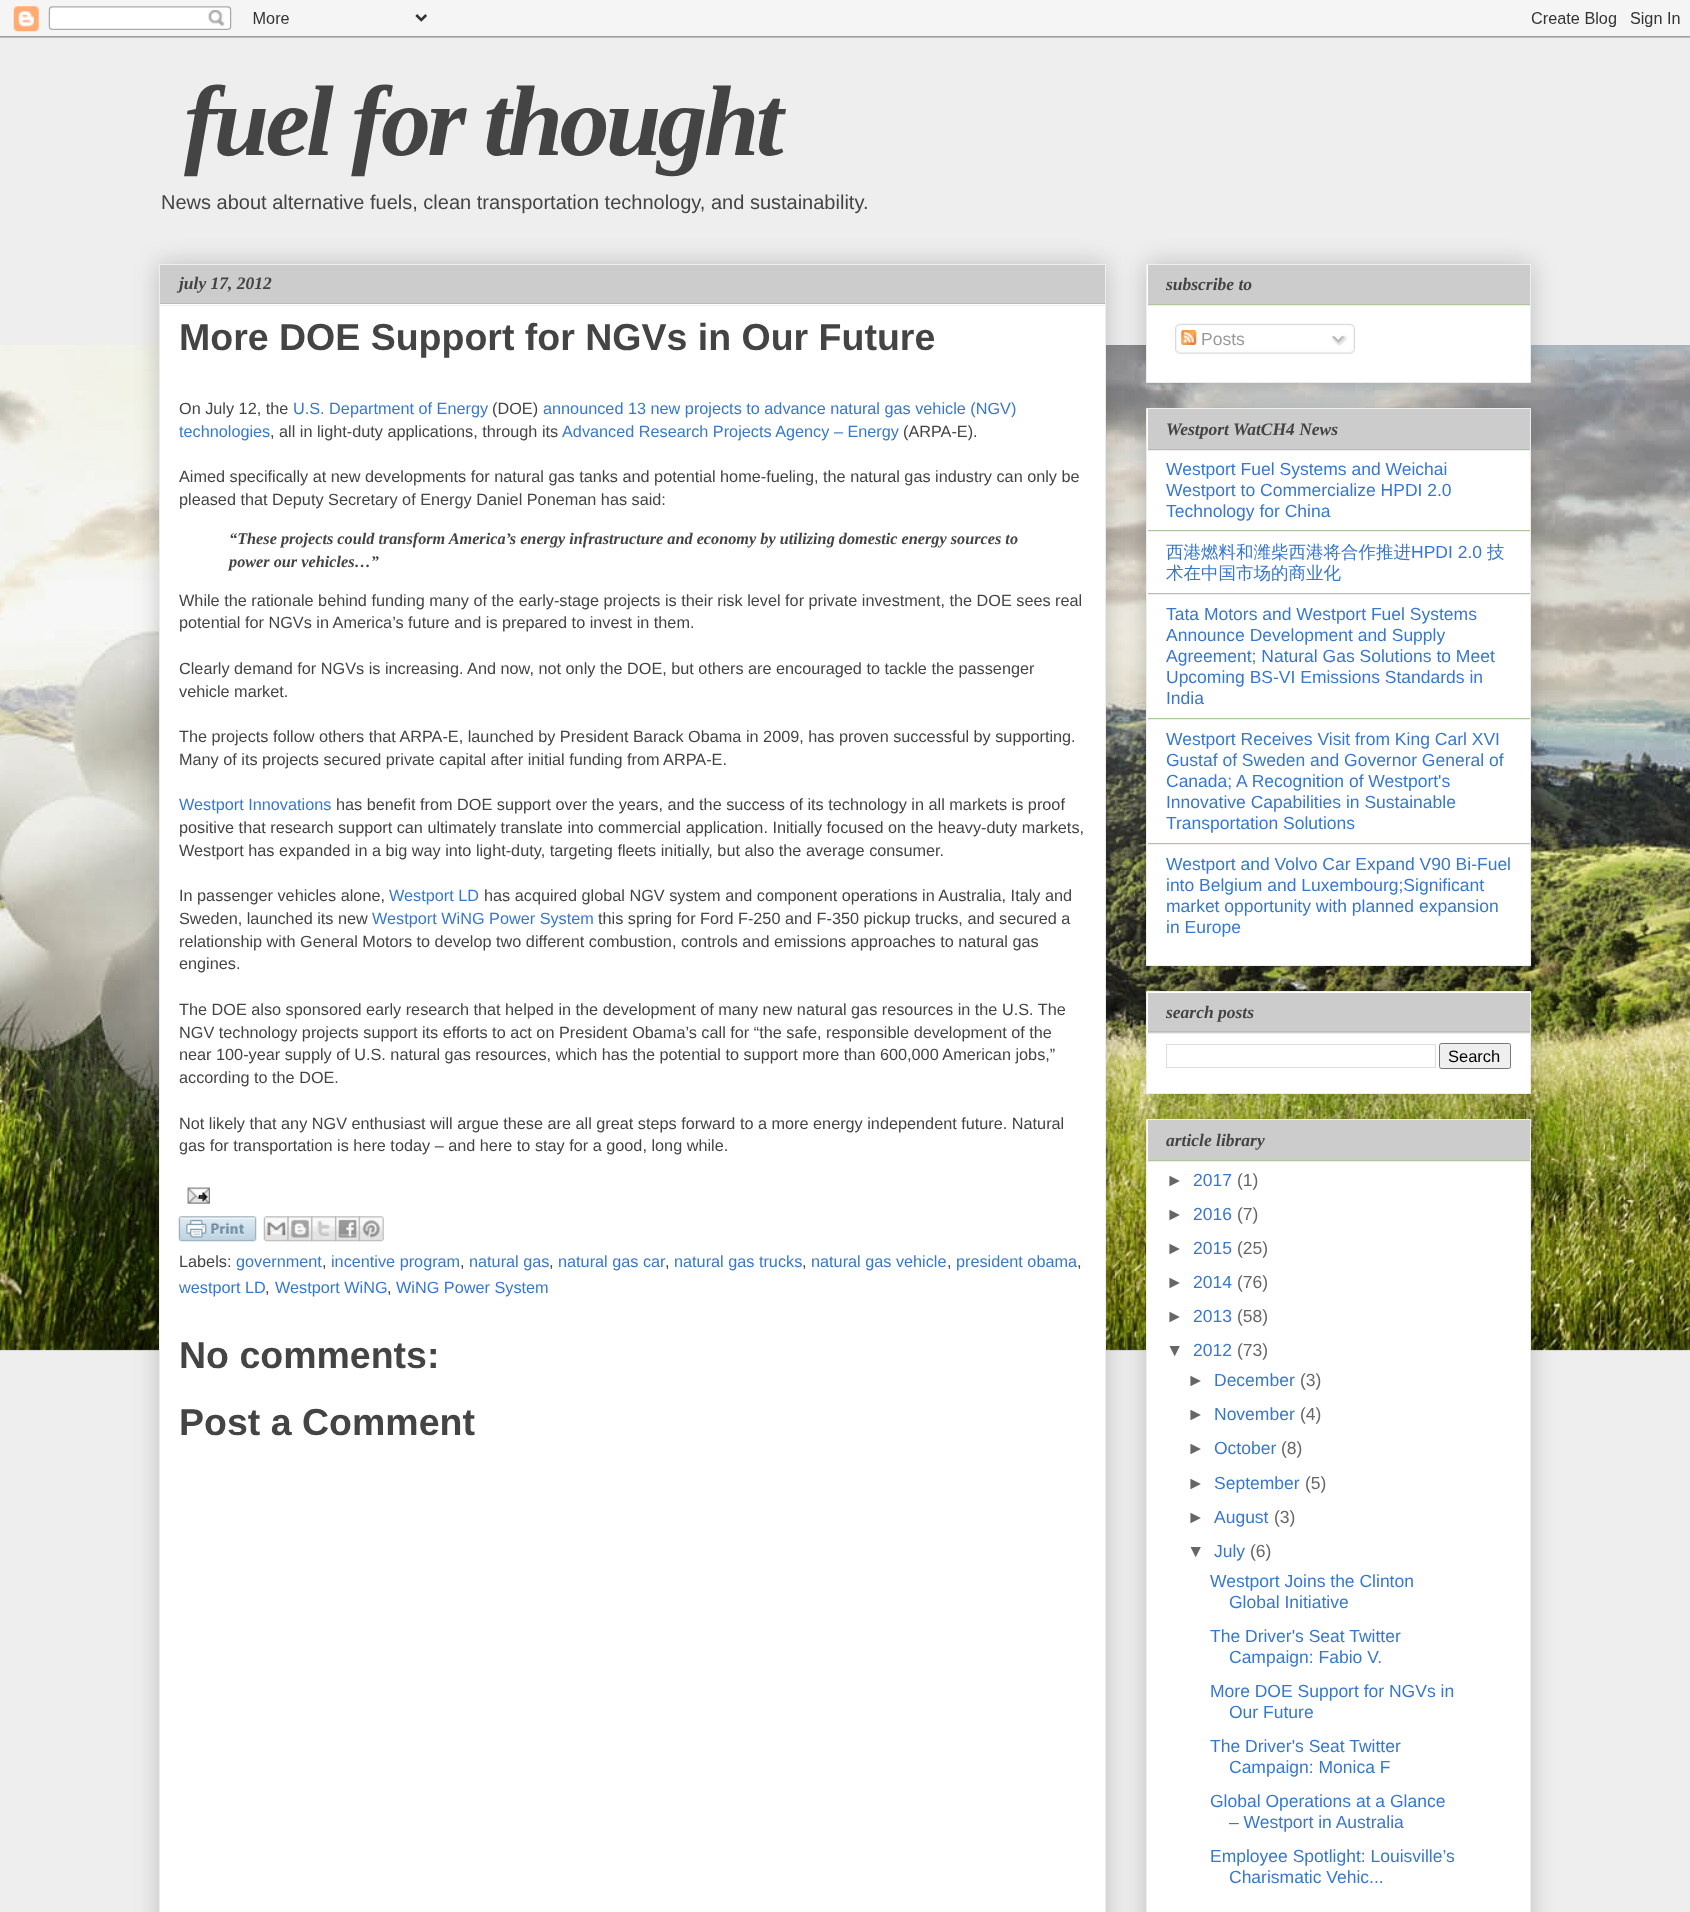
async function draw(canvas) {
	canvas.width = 1690;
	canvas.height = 1912;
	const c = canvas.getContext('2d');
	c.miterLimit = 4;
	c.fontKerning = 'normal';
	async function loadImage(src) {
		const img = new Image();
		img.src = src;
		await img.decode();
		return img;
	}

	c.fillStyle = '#eee';
	c.fillRect(0, 0, 1690, 1912);
	c.drawImage(await loadImage('img1.png'), 0, 345, 1690, 1006);
	c.drawImage(await loadImage('img2.png'), 0, 0, 1690, 38);
	c.letterSpacing = '-3.75px';
	c.font = 'italic bold 100px Liberation Serif';
	c.fillStyle = '#444';
	c.fillText('fuel for thought', 184, 155);
	c.letterSpacing = '0px';
	c.font = '20px Liberation Sans';
	c.fillText('News about alternative fuels, clean transportation technology, and sustainability.', 161, 209);
	c.fillStyle = '#00000033';
	c.filter = 'blur(12.5px)';
	c.beginPath();
	c.rect(159, 264, 947, 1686);
	c.fill();
	c.filter = 'none';
	c.fillStyle = '#fff';
	c.fillRect(160, 304, 945, 1608);
	c.strokeStyle = '#eee';
	c.strokeRect(159.5, 264.5, 946, 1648);
	c.fillStyle = '#ccc';
	c.fillRect(160, 265, 945, 38);
	c.fillStyle = '#aec69d';
	c.fillRect(160, 303, 945, 1);
	c.font = 'italic bold 17.5px Liberation Serif';
	c.fillStyle = '#444';
	c.fillText('july 17, 2012', 179, 289);
	c.fillStyle = '#eee';
	c.fillRect(160, 305, 945, 1);
	c.font = 'bold 37.5px Liberation Sans';
	c.fillStyle = '#444';
	c.fillText('More DOE Support for NGVs in Our Future', 179, 350);
	c.font = '16.25px Liberation Sans';
	c.fillText('On July 12, the', 179, 414);
	c.fillStyle = '#3778cd';
	c.fillText('U.S. Department of Energy', 293, 414);
	c.fillStyle = '#444';
	c.fillText('(DOE)', 492, 414);
	c.fillStyle = '#3778cd';
	c.fillText('announced 13 new projects to advance natural gas vehicle (NGV)', 543, 414);
	c.fillText('technologies', 179, 437);
	c.fillStyle = '#444';
	c.fillText(', all in light-duty applications, through its', 270, 437);
	c.fillStyle = '#3778cd';
	c.fillText('Advanced Research Projects Agency – Energy', 562, 437);
	c.fillStyle = '#444';
	for (const [text, x, y] of [
		['(ARPA-E).', 903, 437],
		['Aimed specifically at new developments for natural gas tanks and potential home-fueling, the natural gas industry can only be', 179, 482],
		['pleased that Deputy Secretary of Energy Daniel Poneman has said:', 179, 505],
	]) {
		c.fillText(text, x, y);
	}
	c.font = 'italic bold 16.25px Liberation Serif';
	c.fillText('“These projects could transform America’s energy infrastructure and economy by utilizing domestic energy sources to', 229, 544);
	c.fillText('power our vehicles…”', 229, 567);
	c.font = '16.25px Liberation Sans';
	for (const [text, x, y] of [
		['While the rationale behind funding many of the early-stage projects is their risk level for private investment, the DOE sees real', 179, 606],
		['potential for NGVs in America’s future and is prepared to invest in them.', 179, 628],
		['Clearly demand for NGVs is increasing. And now, not only the DOE, but others are encouraged to tackle the passenger', 179, 674],
		['vehicle market.', 179, 697],
		['The projects follow others that ARPA-E, launched by President Barack Obama in 2009, has proven successful by supporting.', 179, 742],
		['Many of its projects secured private capital after initial funding from ARPA-E.', 179, 765],
	]) {
		c.fillText(text, x, y);
	}
	c.fillStyle = '#3778cd';
	c.fillText('Westport Innovations', 179, 810);
	c.fillStyle = '#444';
	for (const [text, x, y] of [
		['has benefit from DOE support over the years, and the success of its technology in all markets is proof', 336, 810],
		['positive that research support can ultimately translate into commercial application. Initially focused on the heavy-duty markets,', 179, 833],
		['Westport has expanded in a big way into light-duty, targeting fleets initially, but also the average consumer.', 179, 856],
		['In passenger vehicles alone,', 179, 901],
	]) {
		c.fillText(text, x, y);
	}
	c.fillStyle = '#3778cd';
	c.fillText('Westport LD', 389, 901);
	c.fillStyle = '#444';
	c.fillText('has acquired global NGV system and component operations in Australia, Italy and', 484, 901);
	c.fillText('Sweden, launched its new', 179, 924);
	c.fillStyle = '#3778cd';
	c.fillText('Westport WiNG Power System', 372, 924);
	c.fillStyle = '#444';
	for (const [text, x, y] of [
		['this spring for Ford F-250 and F-350 pickup trucks, and secured a', 598, 924],
		['relationship with General Motors to develop two different combustion, controls and emissions approaches to natural gas', 179, 947],
		['engines.', 179, 969],
		['The DOE also sponsored early research that helped in the development of many new natural gas resources in the U.S. The', 179, 1015],
		['NGV technology projects support its efforts to act on President Obama’s call for “the safe, responsible development of the', 179, 1038],
		['near 100-year supply of U.S. natural gas resources, which has the potential to support more than 600,000 American jobs,”', 179, 1060],
		['according to the DOE.', 179, 1083],
		['Not likely that any NGV enthusiast will argue these are all great steps forward to a more energy independent future. Natural', 179, 1129],
		['gas for transportation is here today – and here to stay for a good, long while.', 179, 1151],
	]) {
		c.fillText(text, x, y);
	}
	c.drawImage(await loadImage('img3.png'), 187, 1187, 23, 17);
	c.drawImage(await loadImage('img4.png'), 178, 1216, 79, 26);
	c.drawImage(await loadImage('img5.png'), 263, 1216, 26, 26);
	c.drawImage(await loadImage('img6.png'), 287, 1216, 26, 26);
	c.drawImage(await loadImage('img7.png'), 311, 1216, 26, 26);
	c.drawImage(await loadImage('img8.png'), 335, 1216, 25, 26);
	c.drawImage(await loadImage('img9.png'), 358, 1216, 26, 26);
	c.fillText('Labels:', 179, 1267);
	c.fillStyle = '#3778cd';
	c.fillText('government', 236, 1267);
	c.fillStyle = '#444';
	c.fillText(',', 322, 1267);
	c.fillStyle = '#3778cd';
	c.fillText('incentive program', 331, 1267);
	c.fillStyle = '#444';
	c.fillText(',', 460, 1267);
	c.fillStyle = '#3778cd';
	c.fillText('natural gas', 469, 1267);
	c.fillStyle = '#444';
	c.fillText(',', 549, 1267);
	c.fillStyle = '#3778cd';
	c.fillText('natural gas car', 558, 1267);
	c.fillStyle = '#444';
	c.fillText(',', 665, 1267);
	c.fillStyle = '#3778cd';
	c.fillText('natural gas trucks', 674, 1267);
	c.fillStyle = '#444';
	c.fillText(',', 802, 1267);
	c.fillStyle = '#3778cd';
	c.fillText('natural gas vehicle', 811, 1267);
	c.fillStyle = '#444';
	c.fillText(',', 947, 1267);
	c.fillStyle = '#3778cd';
	c.fillText('president obama', 956, 1267);
	c.fillStyle = '#444';
	c.fillText(',', 1077, 1267);
	c.fillStyle = '#3778cd';
	c.fillText('westport LD', 179, 1293);
	c.fillStyle = '#444';
	c.fillText(',', 265, 1293);
	c.fillStyle = '#3778cd';
	c.fillText('Westport WiNG', 275, 1293);
	c.fillStyle = '#444';
	c.fillText(',', 387, 1293);
	c.fillStyle = '#3778cd';
	c.fillText('WiNG Power System', 396, 1293);
	c.font = 'bold 37.5px Liberation Sans';
	c.fillStyle = '#444';
	c.fillText('No comments:', 179, 1368);
	c.fillText('Post a Comment', 179, 1435);
	c.fillStyle = '#00000033';
	c.filter = 'blur(12.5px)';
	c.beginPath();
	c.rect(1146, 264, 385, 119);
	c.fill();
	c.filter = 'none';
	c.fillStyle = '#fff';
	c.beginPath();
	c.rect(1146.5, 264.5, 384, 118);
	c.fill();
	c.stroke();
	c.fillStyle = '#ccc';
	c.fillRect(1148, 265, 382, 39);
	c.fillStyle = '#aec69d';
	c.fillRect(1148, 304, 382, 1);
	c.font = 'italic bold 17.5px Liberation Serif';
	c.fillStyle = '#444';
	c.fillText('subscribe to', 1166, 290);
	c.fillStyle = '#eee';
	c.fillRect(1148, 305, 382, 1);
	c.drawImage(await loadImage('img10.png'), 1175, 323, 180, 27);
	c.drawImage(await loadImage('img11.png'), 1181, 330, 16, 15);
	c.font = '17.5px Liberation Sans';
	c.fillStyle = '#999';
	c.fillText('Posts', 1201, 345);
	c.drawImage(await loadImage('img12.png'), 1331, 335, 17, 11);
	c.drawImage(await loadImage('img13.png'), 1175, 350, 180, 4);
	c.fillStyle = '#00000033';
	c.filter = 'blur(12.5px)';
	c.beginPath();
	c.rect(1146, 408, 385, 558);
	c.fill();
	c.filter = 'none';
	c.fillStyle = '#fff';
	c.beginPath();
	c.rect(1146.5, 408.5, 384, 557);
	c.fill();
	c.stroke();
	c.fillStyle = '#ccc';
	c.fillRect(1148, 409, 382, 40);
	c.fillStyle = '#aec69d';
	c.fillRect(1148, 449, 382, 1);
	c.font = 'italic bold 17.5px Liberation Serif';
	c.fillStyle = '#444';
	c.fillText('Westport WatCH4 News', 1166, 435);
	c.fillStyle = '#eee';
	c.fillRect(1148, 450, 382, 1);
	c.fillStyle = '#aec69d';
	c.fillRect(1148, 530, 382, 1);
	c.font = '17.5px Liberation Sans';
	c.fillStyle = '#3778cd';
	for (const [text, x, y] of [
		['Westport Fuel Systems and Weichai', 1166, 475],
		['Westport to Commercialize HPDI 2.0', 1166, 496],
		['Technology for China', 1166, 517],
	]) {
		c.fillText(text, x, y);
	}
	c.fillStyle = '#eee';
	c.fillRect(1148, 531, 382, 1);
	c.fillStyle = '#aec69d';
	c.fillRect(1148, 593, 382, 1);
	c.font = '500 17.5px WenQuanYi Zen Hei';
	c.fillStyle = '#3778cd';
	c.fillText('西港燃料和潍柴西港将合作推进', 1166, 558);
	c.font = '17.5px Liberation Sans';
	c.fillText('HPDI 2.0', 1411, 558);
	c.font = '500 17.5px WenQuanYi Zen Hei';
	c.fillText('技', 1487, 558);
	c.fillText('术在中国市场的商业化', 1166, 579);
	c.fillStyle = '#eee';
	c.fillRect(1148, 594, 382, 1);
	c.fillStyle = '#aec69d';
	c.fillRect(1148, 718, 382, 1);
	c.font = '17.5px Liberation Sans';
	c.fillStyle = '#3778cd';
	for (const [text, x, y] of [
		['Tata Motors and Westport Fuel Systems', 1166, 620],
		['Announce Development and Supply', 1166, 641],
		['Agreement; Natural Gas Solutions to Meet', 1166, 662],
		['Upcoming BS-VI Emissions Standards in', 1166, 683],
		['India', 1166, 704],
	]) {
		c.fillText(text, x, y);
	}
	c.fillStyle = '#eee';
	c.fillRect(1148, 719, 382, 1);
	c.fillStyle = '#aec69d';
	c.fillRect(1148, 843, 382, 1);
	c.fillStyle = '#3778cd';
	for (const [text, x, y] of [
		['Westport Receives Visit from King Carl XVI', 1166, 745],
		['Gustaf of Sweden and Governor General of', 1166, 766],
		['Canada; A Recognition of Westport\'s', 1166, 787],
		['Innovative Capabilities in Sustainable', 1166, 808],
		['Transportation Solutions', 1166, 829],
	]) {
		c.fillText(text, x, y);
	}
	c.fillStyle = '#eee';
	c.fillRect(1148, 844, 382, 1);
	c.fillStyle = '#3778cd';
	for (const [text, x, y] of [
		['Westport and Volvo Car Expand V90 Bi-Fuel', 1166, 870],
		['into Belgium and Luxembourg;Significant', 1166, 891],
		['market opportunity with planned expansion', 1166, 912],
		['in Europe', 1166, 933],
	]) {
		c.fillText(text, x, y);
	}
	c.fillStyle = '#00000033';
	c.filter = 'blur(12.5px)';
	c.beginPath();
	c.rect(1146, 991, 385, 103);
	c.fill();
	c.filter = 'none';
	c.fillStyle = '#fff';
	c.beginPath();
	c.rect(1146.5, 991.5, 384, 102);
	c.fill();
	c.stroke();
	c.fillStyle = '#ccc';
	c.fillRect(1148, 993, 382, 40);
	c.fillStyle = '#aec69d';
	c.fillRect(1148, 1031, 382, 1);
	c.font = 'italic bold 17.5px Liberation Serif';
	c.fillStyle = '#444';
	c.fillText('search posts', 1166, 1018);
	c.fillStyle = '#eee';
	c.fillRect(1148, 1033, 382, 1);
	c.strokeStyle = '#ddd';
	c.strokeRect(1166.5, 1044.5, 269, 23);
	c.fillStyle = '#efefef';
	c.beginPath();
	c.roundRect(1439.5, 1043.5, 71, 25, 2);
	c.fill();
	c.strokeStyle = '#767676';
	c.stroke();
	c.font = '16.5px Liberation Sans';
	c.fillStyle = '#000';
	c.fillText('Search', 1448, 1062);
	c.fillStyle = '#00000033';
	c.filter = 'blur(12.5px)';
	c.beginPath();
	c.rect(1146, 1119, 385, 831);
	c.fill();
	c.filter = 'none';
	c.fillStyle = '#fff';
	c.beginPath();
	c.rect(1146.5, 1119.5, 384, 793);
	c.fill();
	c.strokeStyle = '#eee';
	c.stroke();
	c.fillStyle = '#ccc';
	c.fillRect(1148, 1120, 382, 40);
	c.fillStyle = '#aec69d';
	c.fillRect(1148, 1160, 382, 1);
	c.font = 'italic bold 17.5px Liberation Serif';
	c.fillStyle = '#444';
	c.fillText('article library', 1166, 1146);
	c.fillStyle = '#eee';
	c.fillRect(1148, 1161, 382, 1);
	c.font = '17.5px Liberation Sans';
	c.fillStyle = '#666';
	c.fillText('►', 1166, 1186);
	c.fillStyle = '#3778cd';
	c.fillText('2017', 1193, 1186);
	c.fillStyle = '#666';
	c.fillText('(1)', 1237, 1186);
	c.fillText('►', 1166, 1220);
	c.fillStyle = '#3778cd';
	c.fillText('2016', 1193, 1220);
	c.fillStyle = '#666';
	c.fillText('(7)', 1237, 1220);
	c.fillText('►', 1166, 1254);
	c.fillStyle = '#3778cd';
	c.fillText('2015', 1193, 1254);
	c.fillStyle = '#666';
	c.fillText('(25)', 1237, 1254);
	c.fillText('►', 1166, 1288);
	c.fillStyle = '#3778cd';
	c.fillText('2014', 1193, 1288);
	c.fillStyle = '#666';
	c.fillText('(76)', 1237, 1288);
	c.fillText('►', 1166, 1322);
	c.fillStyle = '#3778cd';
	c.fillText('2013', 1193, 1322);
	c.fillStyle = '#666';
	c.fillText('(58)', 1237, 1322);
	c.fillText('▼', 1166, 1356);
	c.fillStyle = '#3778cd';
	c.fillText('2012', 1193, 1356);
	c.fillStyle = '#666';
	c.fillText('(73)', 1237, 1356);
	c.fillText('►', 1187, 1386);
	c.fillStyle = '#3778cd';
	c.fillText('December', 1214, 1386);
	c.fillStyle = '#666';
	c.fillText('(3)', 1300, 1386);
	c.fillText('►', 1187, 1420);
	c.fillStyle = '#3778cd';
	c.fillText('November', 1214, 1420);
	c.fillStyle = '#666';
	c.fillText('(4)', 1300, 1420);
	c.fillText('►', 1187, 1454);
	c.fillStyle = '#3778cd';
	c.fillText('October', 1214, 1454);
	c.fillStyle = '#666';
	c.fillText('(8)', 1281, 1454);
	c.fillText('►', 1187, 1489);
	c.fillStyle = '#3778cd';
	c.fillText('September', 1214, 1489);
	c.fillStyle = '#666';
	c.fillText('(5)', 1305, 1489);
	c.fillText('►', 1187, 1523);
	c.fillStyle = '#3778cd';
	c.fillText('August', 1214, 1523);
	c.fillStyle = '#666';
	c.fillText('(3)', 1274, 1523);
	c.fillText('▼', 1187, 1557);
	c.fillStyle = '#3778cd';
	c.fillText('July', 1214, 1557);
	c.fillStyle = '#666';
	c.fillText('(6)', 1250, 1557);
	c.fillStyle = '#3778cd';
	for (const [text, x, y] of [
		['Westport Joins the Clinton', 1210, 1587],
		['Global Initiative', 1229, 1608],
		['The Driver\'s Seat Twitter', 1210, 1642],
		['Campaign: Fabio V.', 1229, 1663],
		['More DOE Support for NGVs in', 1210, 1697],
		['Our Future', 1229, 1718],
		['The Driver\'s Seat Twitter', 1210, 1752],
		['Campaign: Monica F', 1229, 1773],
		['Global Operations at a Glance', 1210, 1807],
		['– Westport in Australia', 1229, 1828],
		['Employee Spotlight: Louisville’s', 1210, 1862],
		['Charismatic Vehic...', 1229, 1883],
	]) {
		c.fillText(text, x, y);
	}
}

draw(document.querySelector('canvas'));
